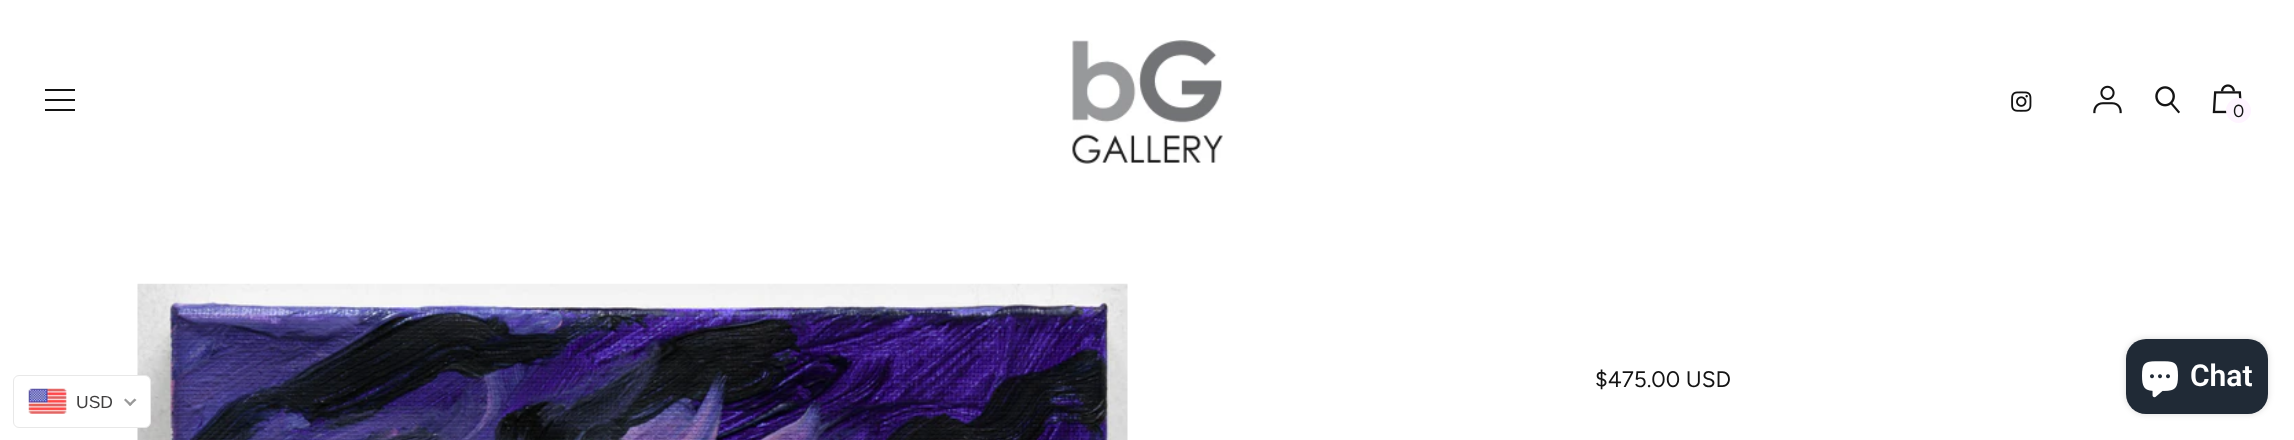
async function draw(canvas) {
	canvas.width = 2294;
	canvas.height = 440;
	const c = canvas.getContext('2d');
	c.miterLimit = 4;
	c.fontKerning = 'normal';
	async function loadImage(src) {
		const img = new Image();
		img.src = src;
		await img.decode();
		return img;
	}

	c.fillStyle = '#fff';
	c.fillRect(0, 0, 2294, 440);
	for (const [x, y, w, h, color] of [
		[45, 109, 30, 2, '#141414'],
		[45, 99, 30, 2, '#141414'],
		[45, 89, 30, 2, '#141414'],
	]) {
		c.fillStyle = color;
		c.fillRect(x, y, w, h);
	}
	c.drawImage(await loadImage('img1.png'), 1072, 40, 151, 124);
	c.drawImage(await loadImage('img2.png'), 2011, 91, 21, 21);
	c.drawImage(await loadImage('img3.png'), 2093, 85, 29, 29);
	c.drawImage(await loadImage('img4.png'), 2155, 86, 25, 28);
	c.drawImage(await loadImage('img5.png'), 2212, 84, 30, 30);
	c.fillStyle = '#fef4ff';
	c.beginPath();
	c.arc(2238.5, 110.5, 12.5, 0, 2 * Math.PI);
	c.fill();
	c.font = '17.5px Figtree';
	c.fillStyle = '#141414';
	c.fillText('0', 2233, 117);
	c.drawImage(await loadImage('img6.png'), 137, 283, 991, 157);
	c.font = '22.5px Figtree';
	c.fillText('$475.00 USD', 1595, 387);
	c.fillStyle = '#00000026';
	c.filter = 'blur(3px)';
	c.beginPath();
	c.roundRect(2126, 339, 142, 75, 20);
	c.fill();
	c.filter = 'none';
	c.fillStyle = '#202a36';
	c.beginPath();
	c.roundRect(2126, 339, 142, 75, 20);
	c.fill();
	c.drawImage(await loadImage('img7.png'), 2142, 361, 36, 37);
	c.font = '600 30px Roboto';
	c.fillStyle = '#fff';
	c.fillText('Chat', 2190, 386);
	c.beginPath();
	c.roundRect(13.5, 375.5, 137, 52, 5.5);
	c.fill();
	c.strokeStyle = '#e8e8e8';
	c.stroke();
	c.drawImage(await loadImage('img8.png'), 28, 388, 39, 26);
	c.font = '17.5px Liberation Sans';
	c.fillStyle = '#403f3f';
	c.fillText('USD', 76, 408);
	c.fillStyle = '#999';
	c.beginPath();
	c.moveTo(134.5, 398.5);
	c.lineTo(136.5, 400);
	c.lineTo(130, 406);
	c.lineTo(128.5, 404.5);
	c.closePath();
	c.fill();
	c.beginPath();
	c.moveTo(125.5, 398.5);
	c.lineTo(132, 404.5);
	c.lineTo(130, 406);
	c.lineTo(124, 400);
	c.closePath();
	c.fill();
}

draw(document.querySelector('canvas'));
